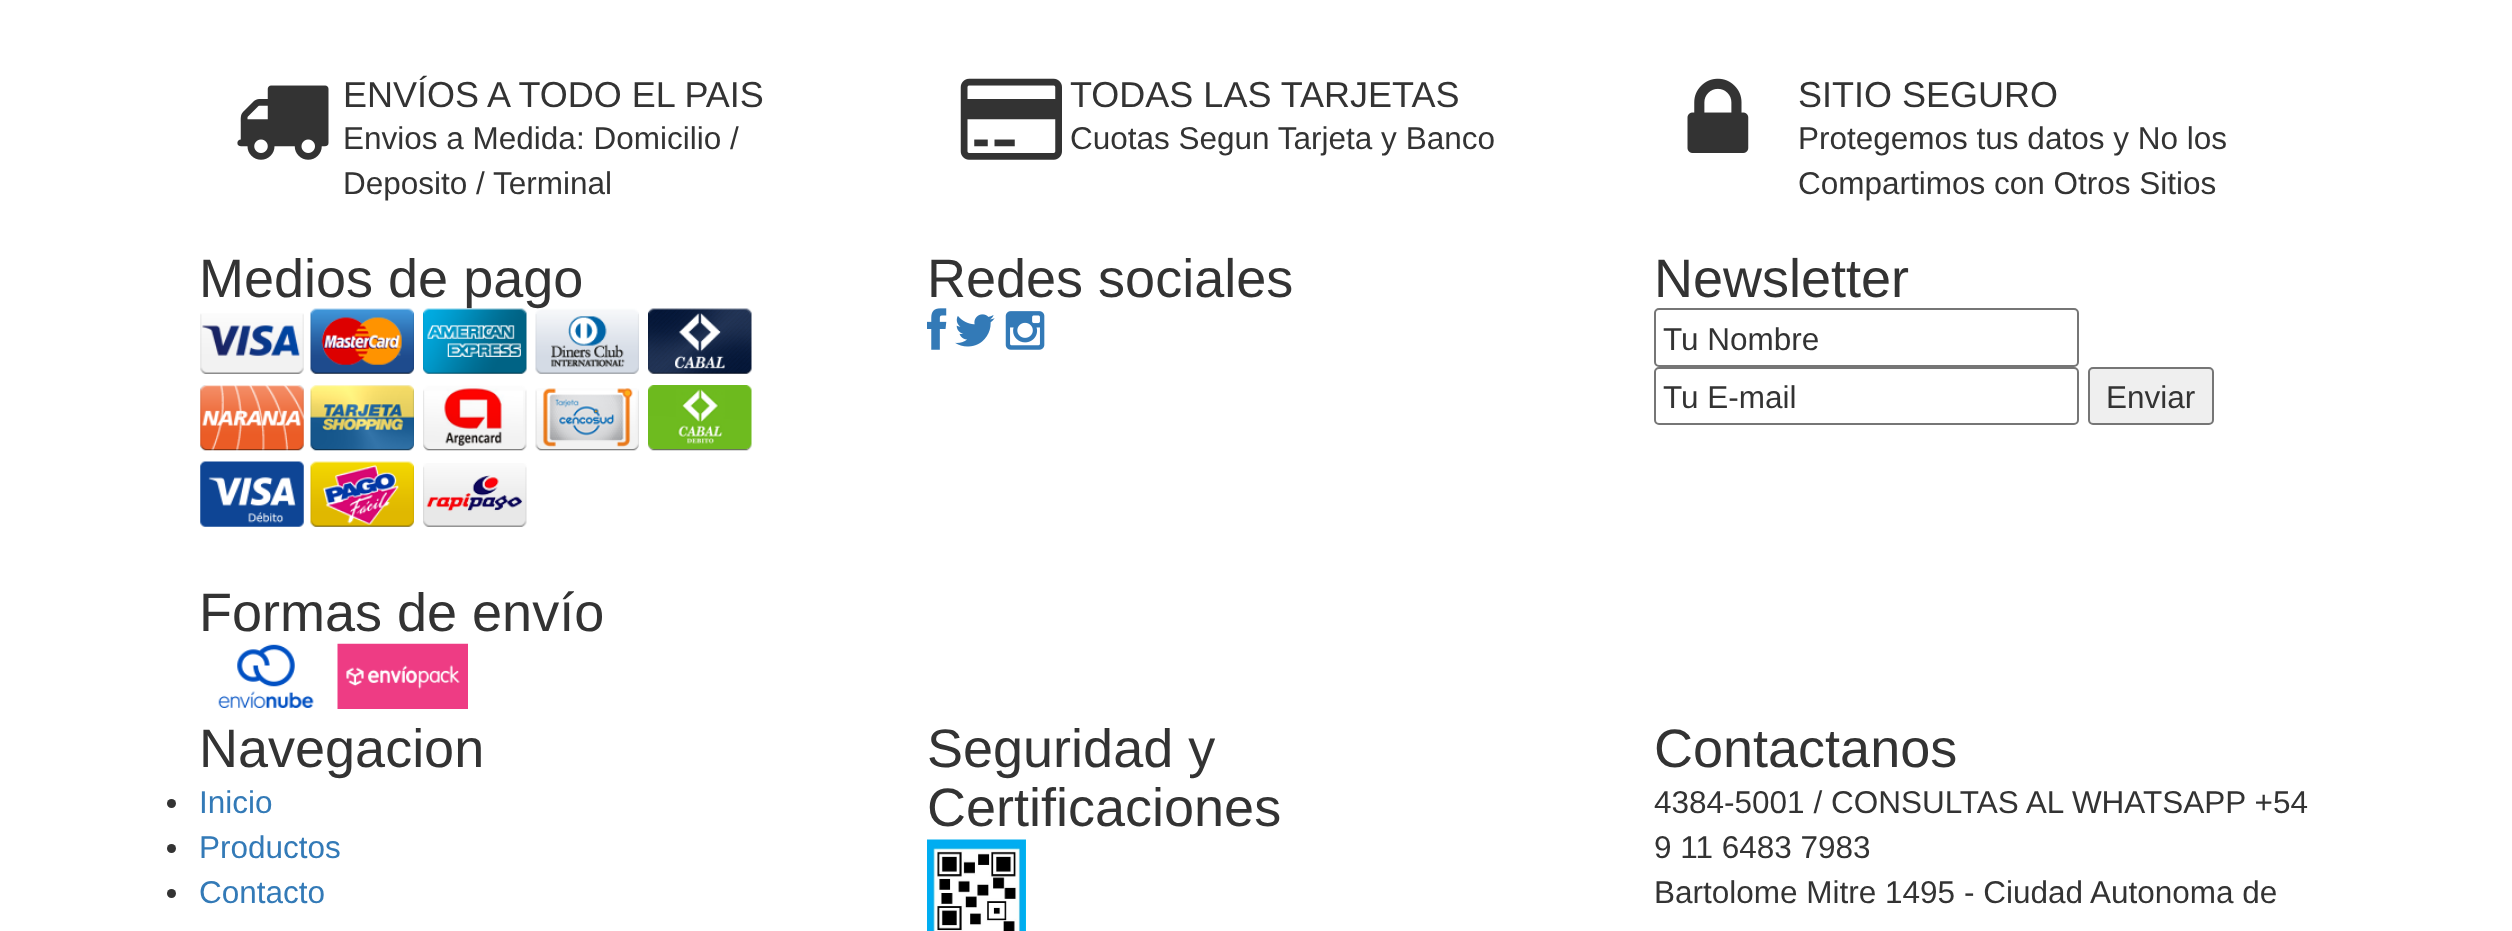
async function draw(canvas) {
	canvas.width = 2512;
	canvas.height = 931;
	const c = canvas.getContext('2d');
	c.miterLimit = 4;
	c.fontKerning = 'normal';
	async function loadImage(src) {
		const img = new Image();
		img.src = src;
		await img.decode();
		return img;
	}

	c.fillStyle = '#fff';
	c.fillRect(0, 0, 2512, 931);
	c.drawImage(await loadImage('img1.png'), 237, 85, 92, 75);
	c.font = '36px Liberation Sans';
	c.fillStyle = '#333';
	c.fillText('ENVÍOS A TODO EL PAIS', 343, 107);
	c.font = '31.5px Liberation Sans';
	c.fillText('Envios a Medida: Domicilio /', 343, 149);
	c.fillText('Deposito / Terminal', 343, 194);
	c.drawImage(await loadImage('img2.png'), 960, 78, 102, 82);
	c.font = '36px Liberation Sans';
	c.fillText('TODAS LAS TARJETAS', 1070, 107);
	c.font = '31.5px Liberation Sans';
	c.fillText('Cuotas Segun Tarjeta y Banco', 1070, 149);
	c.drawImage(await loadImage('img3.png'), 1687, 78, 62, 75);
	c.font = '36px Liberation Sans';
	c.fillText('SITIO SEGURO', 1798, 107);
	c.font = '31.5px Liberation Sans';
	c.fillText('Protegemos tus datos y No los', 1798, 149);
	c.fillText('Compartimos con Otros Sitios', 1798, 194);
	c.font = '54px Liberation Sans';
	c.fillText('Medios de pago', 199, 297);
	c.drawImage(await loadImage('img4.png'), 200, 313, 104, 61);
	c.drawImage(await loadImage('img5.png'), 310, 308, 104, 66);
	c.drawImage(await loadImage('img6.png'), 423, 308, 104, 66);
	c.drawImage(await loadImage('img7.png'), 535, 308, 104, 66);
	c.drawImage(await loadImage('img8.png'), 648, 308, 104, 66);
	c.drawImage(await loadImage('img9.png'), 200, 385, 104, 66);
	c.drawImage(await loadImage('img10.png'), 310, 385, 104, 66);
	c.drawImage(await loadImage('img11.png'), 423, 385, 104, 66);
	c.drawImage(await loadImage('img12.png'), 535, 388, 104, 63);
	c.drawImage(await loadImage('img13.png'), 648, 385, 104, 66);
	c.drawImage(await loadImage('img14.png'), 200, 461, 104, 66);
	c.drawImage(await loadImage('img15.png'), 310, 461, 104, 66);
	c.drawImage(await loadImage('img16.png'), 423, 463, 104, 64);
	c.fillText('Formas de envío', 199, 631);
	c.drawImage(await loadImage('img17.png'), 218, 644, 96, 64);
	c.drawImage(await loadImage('img18.png'), 337, 643, 131, 66);
	c.fillText('Redes sociales', 927, 297);
	c.drawImage(await loadImage('img19.png'), 927, 308, 20, 42);
	c.drawImage(await loadImage('img20.png'), 955, 314, 40, 33);
	c.drawImage(await loadImage('img21.png'), 1005, 311, 40, 39);
	c.fillText('Newsletter', 1654, 297);
	c.beginPath();
	c.roundRect(1655, 309, 423, 57, 4);
	c.strokeStyle = '#767676';
	c.lineWidth = 2;
	c.stroke();
	c.font = '31.5px Liberation Sans';
	c.fillText('Tu Nombre', 1663, 350);
	c.beginPath();
	c.roundRect(1655, 368, 423, 56, 4);
	c.stroke();
	c.fillText('Tu E-mail', 1663, 408);
	c.fillStyle = '#efefef';
	c.beginPath();
	c.roundRect(2089, 368, 124, 56, 4);
	c.fill();
	c.stroke();
	c.fillStyle = '#333';
	c.fillText('Enviar', 2106, 408);
	c.font = '54px Liberation Sans';
	c.fillText('Navegacion', 199, 767);
	c.beginPath();
	c.arc(171.5, 803.5, 4.5, 0, 2 * Math.PI);
	c.fill();
	c.font = '31.5px Liberation Sans';
	c.fillStyle = '#337ab7';
	c.fillText('Inicio', 199, 813);
	c.fillStyle = '#333';
	c.beginPath();
	c.arc(171.5, 848.5, 4.5, 0, 2 * Math.PI);
	c.fill();
	c.fillStyle = '#337ab7';
	c.fillText('Productos', 199, 858);
	c.fillStyle = '#333';
	c.beginPath();
	c.arc(171.5, 893.5, 4.5, 0, 2 * Math.PI);
	c.fill();
	c.fillStyle = '#337ab7';
	c.fillText('Contacto', 199, 903);
	c.font = '54px Liberation Sans';
	c.fillStyle = '#333';
	c.fillText('Seguridad y', 927, 767);
	c.fillText('Certificaciones', 927, 826);
	c.drawImage(await loadImage('img22.png'), 927, 839, 99, 92);
	c.fillText('Contactanos', 1654, 767);
	c.font = '31.5px Liberation Sans';
	for (const [text, x, y] of [
		['4384-5001 / CONSULTAS AL WHATSAPP +54', 1654, 813],
		['9 11 6483 7983', 1654, 858],
		['Bartolome Mitre 1495 - Ciudad Autonoma de', 1654, 903],
	]) {
		c.fillText(text, x, y);
	}
}

draw(document.querySelector('canvas'));
